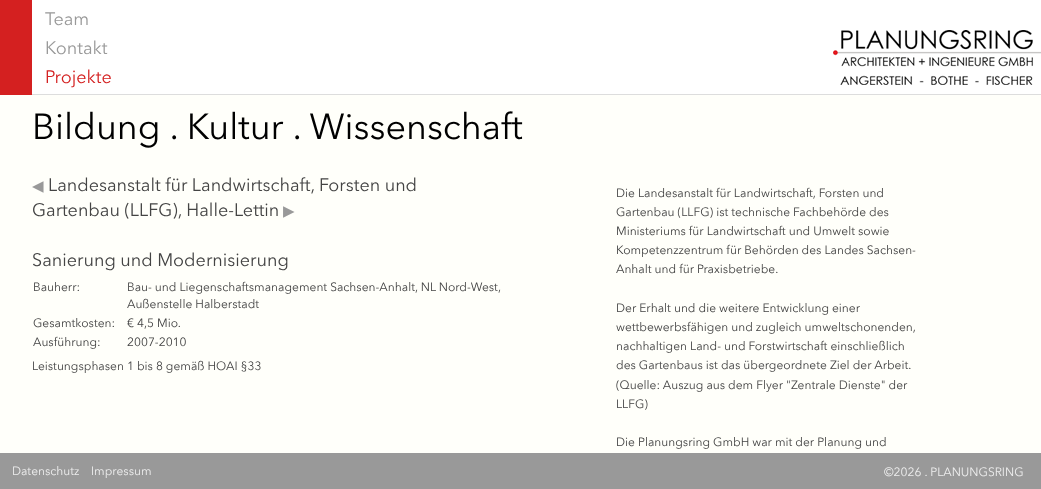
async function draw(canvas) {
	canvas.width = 1041;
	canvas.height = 489;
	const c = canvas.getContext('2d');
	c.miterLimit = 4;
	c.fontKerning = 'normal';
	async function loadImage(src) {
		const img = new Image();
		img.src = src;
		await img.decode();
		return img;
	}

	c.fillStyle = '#fffffa';
	c.fillRect(0, 0, 1041, 489);
	for (const [x, y, w, h, color] of [
		[0, 0, 32, 95, '#d42020'],
		[32, 0, 1009, 94, '#fff'],
		[32, 94, 1009, 1, '#ddd'],
	]) {
		c.fillStyle = color;
		c.fillRect(x, y, w, h);
	}
	c.font = '18px "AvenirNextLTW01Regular"';
	c.fillStyle = '#999';
	c.fillText('Team', 45, 25);
	c.fillText('Kontakt', 45, 54);
	c.fillStyle = '#d42020';
	c.fillText('Projekte', 45, 83);
	c.drawImage(await loadImage('img1.png'), 833, 30, 208, 55);
	c.font = '36px "AvenirNextLTW01Regular"';
	c.fillStyle = '#000';
	c.fillText('Bildung . Kultur . Wissenschaft', 32, 139);
	c.font = '15px DejaVu Sans';
	c.fillStyle = '#999';
	c.fillText('◀︎', 32, 191);
	c.font = '18px "AvenirNextLTW01Regular"';
	c.fillStyle = '#444';
	c.fillText('Landesanstalt für Landwirtschaft, Forsten und', 48, 191);
	c.fillText('Gartenbau (LLFG), Halle-Lettin', 32, 216);
	c.font = '15px DejaVu Sans';
	c.fillStyle = '#999';
	c.fillText('▶︎', 283, 216);
	c.font = '18px "AvenirNextLTW01Regular"';
	c.fillStyle = '#444';
	c.fillText('Sanierung und Modernisierung', 32, 266);
	c.font = '12px "AvenirNextLTW01Regular"';
	for (const [text, x, y] of [
		['Bauherr:', 33, 291],
		['Bau- und Liegenschaftsmanagement Sachsen-Anhalt, NL Nord-West,', 127, 291],
		['Außenstelle Halberstadt', 127, 308],
		['Gesamtkosten:', 33, 327],
		['€ 4,5 Mio.', 127, 327],
		['Ausführung:', 33, 346],
		['2007-2010', 127, 346],
		['Leistungsphasen 1 bis 8 gemäß HOAI §33', 32, 370],
		['Die Landesanstalt für Landwirtschaft, Forsten und', 616, 197],
		['Gartenbau (LLFG) ist technische Fachbehörde des', 616, 216],
		['Ministeriums für Landwirtschaft und Umwelt sowie', 616, 235],
		['Kompetenzzentrum für Behörden des Landes Sachsen-', 616, 254],
		['Anhalt und für Praxisbetriebe.', 616, 273],
		['Der Erhalt und die weitere Entwicklung einer', 616, 312],
		['wettbewerbsfähigen und zugleich umweltschonenden,', 616, 331],
		['nachhaltigen Land- und Forstwirtschaft einschließlich', 616, 350],
		['des Gartenbaus ist das übergeordnete Ziel der Arbeit.', 616, 369],
		['(Quelle: Auszug aus dem Flyer "Zentrale Dienste" der', 616, 389],
		['LLFG)', 616, 408],
		['Die Planungsring GmbH war mit der Planung und', 616, 446],
	]) {
		c.fillText(text, x, y);
	}
	c.fillStyle = '#999';
	c.fillRect(0, 453, 1041, 36);
	c.fillStyle = '#eee';
	for (const [text, x, y] of [
		['Datenschutz', 12, 475],
		['Impressum', 91, 475],
		['©2026 . PLANUNGSRING', 884, 476],
	]) {
		c.fillText(text, x, y);
	}
}

draw(document.querySelector('canvas'));
